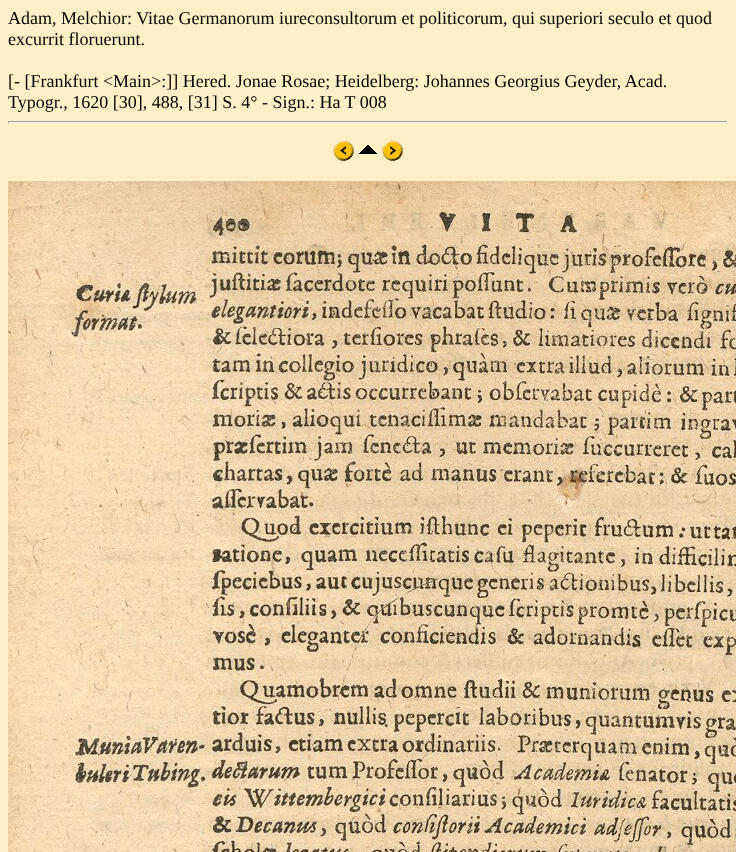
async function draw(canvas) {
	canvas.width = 736;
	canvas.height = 852;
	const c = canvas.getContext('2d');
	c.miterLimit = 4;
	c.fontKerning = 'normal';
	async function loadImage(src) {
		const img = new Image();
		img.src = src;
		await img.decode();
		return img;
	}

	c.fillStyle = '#ffefc6';
	c.fillRect(0, 0, 736, 852);
	c.font = '18px Liberation Serif';
	c.fillStyle = '#000';
	for (const [text, x, y] of [
		['Adam, Melchior: Vitae Germanorum iureconsultorum et politicorum, qui superiori seculo et quod', 8, 24],
		['excurrit floruerunt.', 8, 45],
		['[- [Frankfurt <Main>:]] Hered. Jonae Rosae; Heidelberg: Johannes Georgius Geyder, Acad.', 8, 87],
		['Typogr., 1620 [30], 488, [31] S. 4° - Sign.: Ha T 008', 8, 108],
	]) {
		c.fillText(text, x, y);
	}
	for (const [x, y, w, h, color] of [
		[8, 121, 720, 1, '#9f9f9f'],
		[727, 121, 1, 2, '#eee'],
		[8, 122, 720, 1, '#eee'],
		[8, 121, 1, 2, '#9f9f9f'],
	]) {
		c.fillStyle = color;
		c.fillRect(x, y, w, h);
	}
	c.drawImage(await loadImage('img1.png'), 333, 140, 21, 21);
	c.drawImage(await loadImage('img2.png'), 359, 145, 18, 9);
	c.drawImage(await loadImage('img3.png'), 382, 140, 21, 21);
	c.drawImage(await loadImage('img4.png'), 8, 181, 728, 671);
}

draw(document.querySelector('canvas'));
